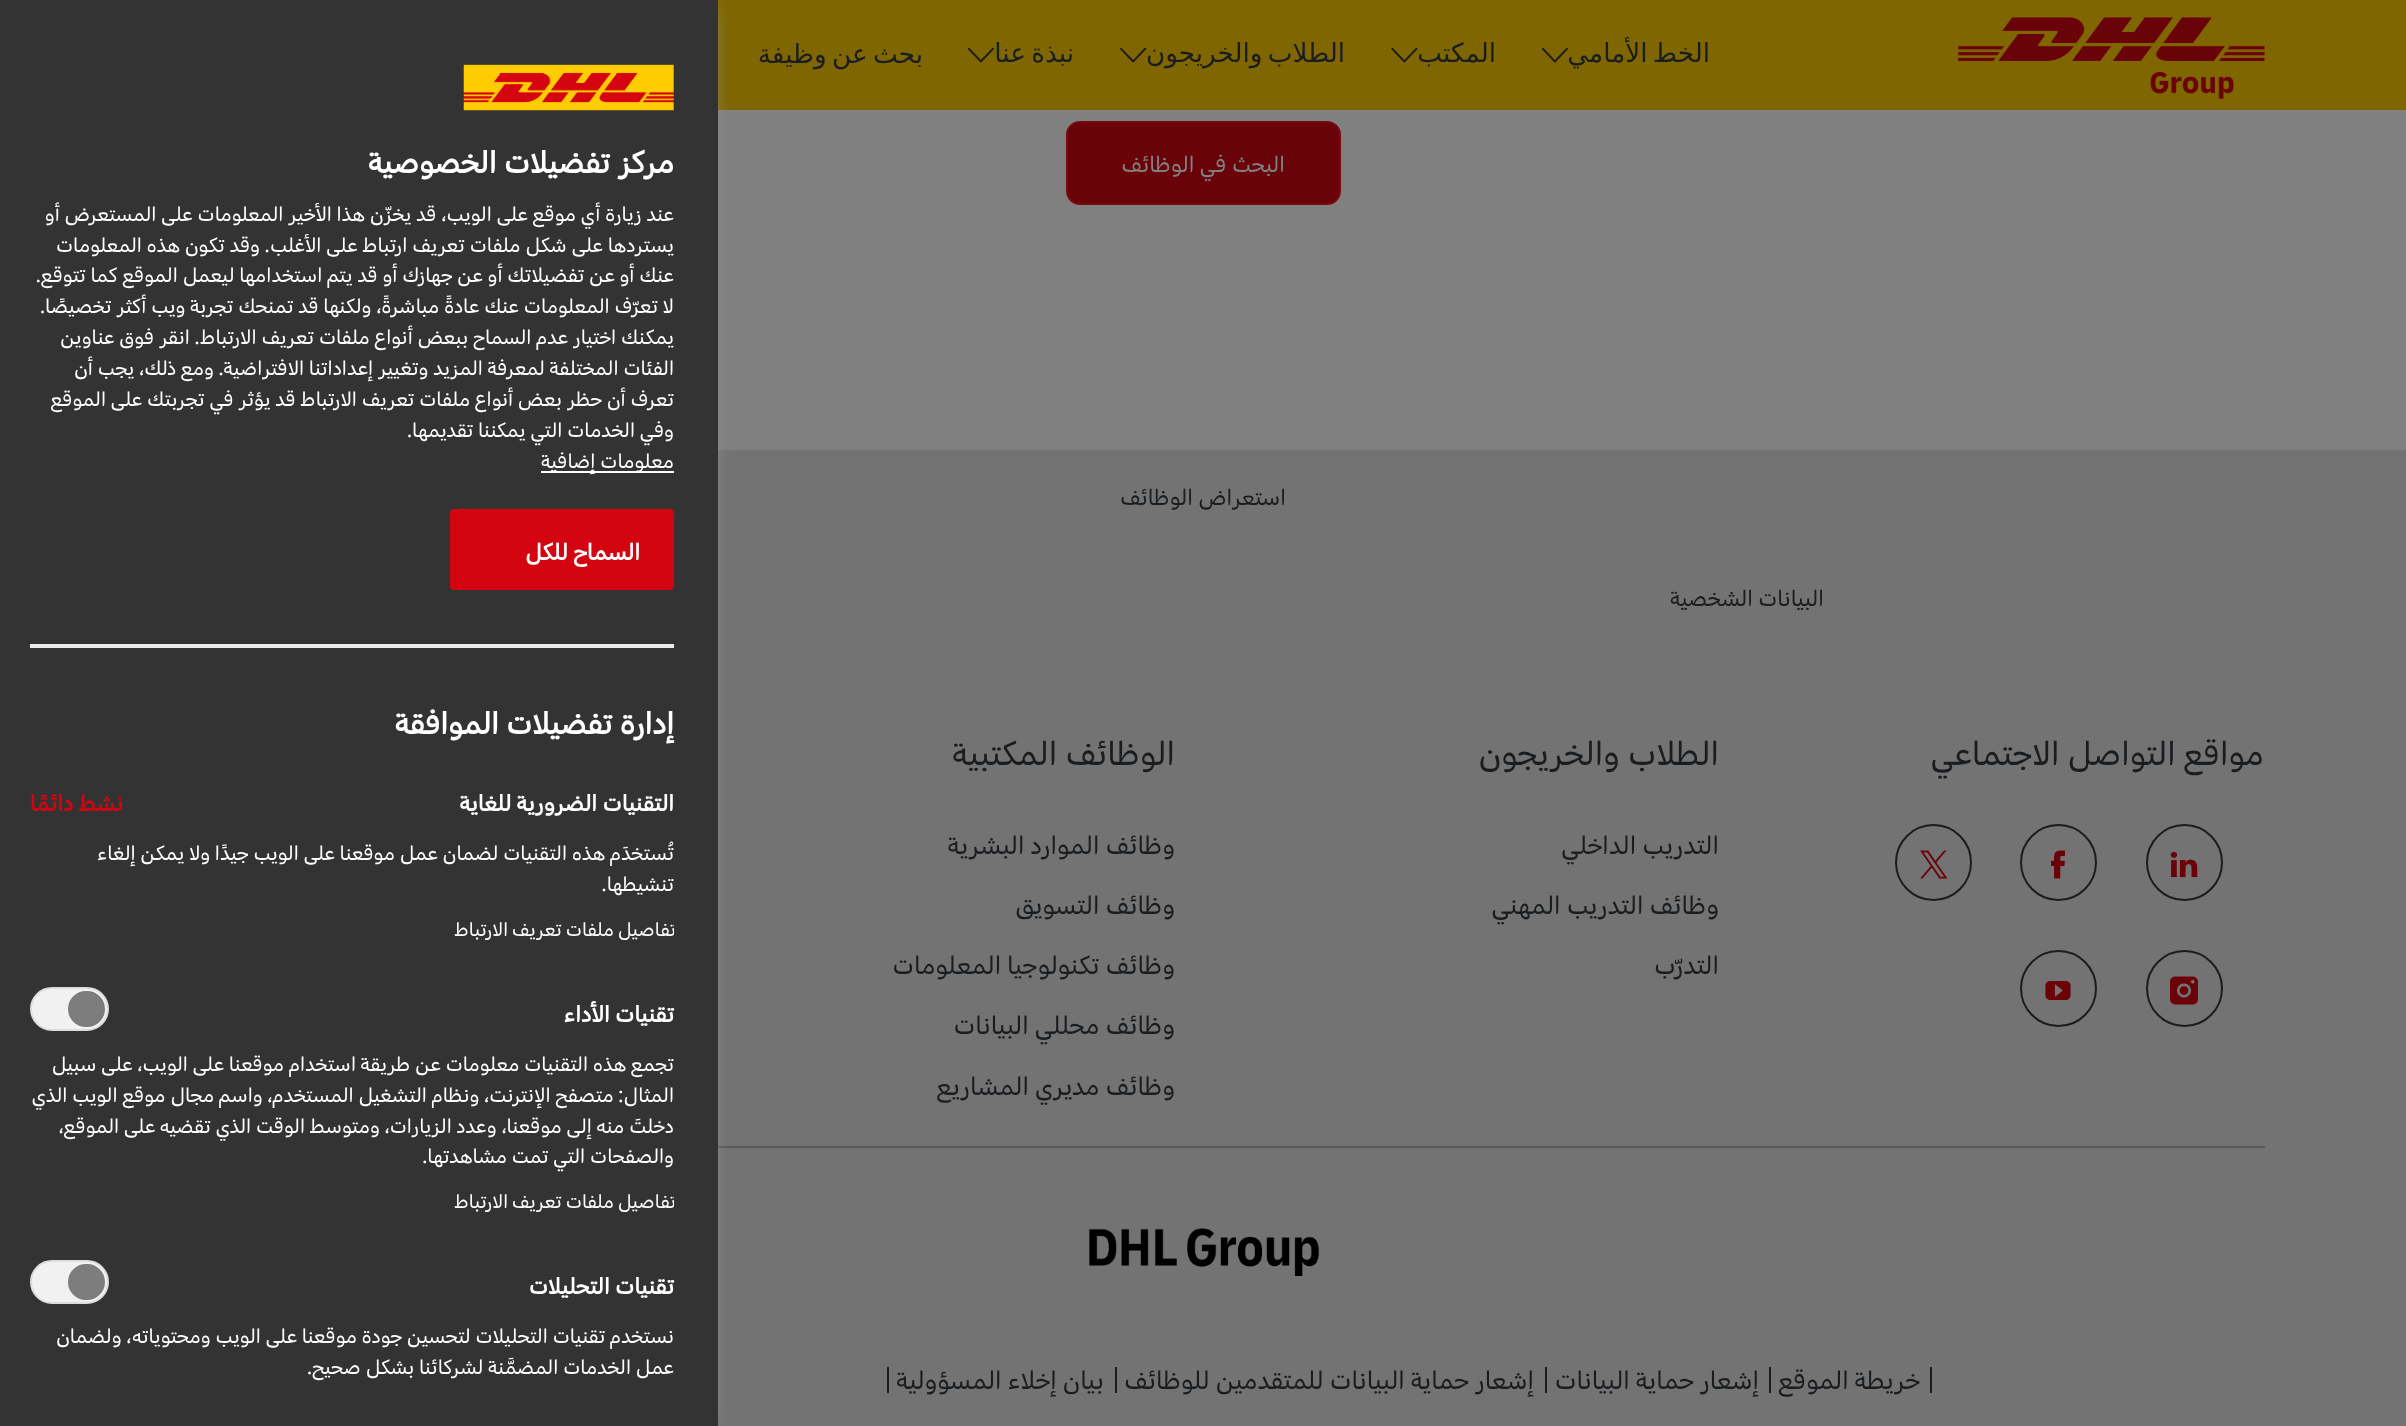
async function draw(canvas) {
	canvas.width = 2406;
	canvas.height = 1426;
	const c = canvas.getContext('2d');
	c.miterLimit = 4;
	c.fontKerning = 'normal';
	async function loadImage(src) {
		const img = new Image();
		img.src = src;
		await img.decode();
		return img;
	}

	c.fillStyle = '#808080';
	c.fillRect(0, 0, 2406, 1426);
	c.fillStyle = '#806600';
	c.fillRect(718, 0, 1688, 110);
	c.drawImage(await loadImage('img1.png'), 1958, 16, 307, 83);
	c.wordSpacing = '-3px';
	c.direction = 'rtl';
	c.font = '26.25px DejaVu Sans';
	c.fillStyle = '#1a1d20';
	c.fillText('الخط الأمامي', 1710, 62);
	c.drawImage(await loadImage('img2.png'), 1541, 47, 27, 16);
	c.wordSpacing = '0px';
	c.fillText('المكتب', 1496, 62);
	c.drawImage(await loadImage('img3.png'), 1391, 47, 27, 16);
	c.wordSpacing = '-3px';
	c.fillText('الطلاب والخريجون', 1345, 62);
	c.drawImage(await loadImage('img4.png'), 1120, 47, 27, 16);
	c.fillText('نبذة عنا', 1074, 62);
	c.drawImage(await loadImage('img2.png'), 967, 47, 27, 16);
	c.fillText('بحث عن وظيفة', 923, 63);
	c.fillStyle = '#6a0309';
	c.beginPath();
	c.roundRect(1067, 122, 273, 82, 13);
	c.fill();
	c.strokeStyle = '#760a0f';
	c.lineWidth = 2;
	c.stroke();
	c.wordSpacing = '0px';
	c.font = '24.5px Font';
	c.fillStyle = '#808080';
	c.fillText('البحث في الوظائف', 1285, 172);
	c.fillStyle = '#737373';
	c.fillRect(718, 450, 1688, 976);
	c.fillStyle = '#575b5f';
	c.fillRect(718, 1146, 1547, 2);
	c.fillStyle = '#999';
	c.filter = 'blur(9px)';
	c.beginPath();
	c.rect(5, 9, 707, 1416);
	c.fill();
	c.filter = 'none';
	c.fillStyle = '#333';
	c.fillRect(0, 0, 718, 1426);
	c.drawImage(await loadImage('img5.png'), 463, 64, 211, 47);
	c.font = 'bold 33.5px Font';
	c.fillStyle = '#fff';
	c.fillText('مركز تفضيلات الخصوصية', 674, 173);
	c.font = '22.1px Font';
	for (const [text, x, y] of [
		['عند زيارة أي موقع على الويب، قد يخزّن هذا الأخير المعلومات على المستعرض أو', 674, 221],
		['يستردها على شكل ملفات تعريف ارتباط على الأغلب. وقد تكون هذه المعلومات', 674, 252],
		['عنك أو عن تفضيلاتك أو عن جهازك أو قد يتم استخدامها ليعمل الموقع كما تتوقع.', 674, 282],
		['لا تعرّف المعلومات عنك عادةً مباشرةً، ولكنها قد تمنحك تجربة ويب أكثر تخصيصًا.', 674, 313],
		['يمكنك اختيار عدم السماح ببعض أنواع ملفات تعريف الارتباط. انقر فوق عناوين', 674, 344],
		['الفئات المختلفة لمعرفة المزيد وتغيير إعداداتنا الافتراضية. ومع ذلك، يجب أن', 674, 375],
		['تعرف أن حظر بعض أنواع ملفات تعريف الارتباط قد يؤثر في تجربتك على الموقع', 674, 406],
		['وفي الخدمات التي يمكننا تقديمها.', 674, 437],
	]) {
		c.fillText(text, x, y);
	}
	c.fillRect(541, 471, 133, 2);
	c.fillText('معلومات إضافية', 674, 468);
	c.fillStyle = '#d40511';
	c.beginPath();
	c.roundRect(451, 510, 222, 79, 3);
	c.fill();
	c.strokeStyle = '#d40511';
	c.stroke();
	c.letterSpacing = '2px';
	c.wordSpacing = '-2px';
	c.font = 'bold 25.25px Font';
	c.fillStyle = '#fff';
	c.fillText('السماح للكل', 640, 560);
	c.fillStyle = '#ebebeb';
	c.fillRect(30, 644, 644, 4);
	c.letterSpacing = '0px';
	c.wordSpacing = '0px';
	c.font = 'bold 33.5px Font';
	c.fillStyle = '#fff';
	c.fillText('إدارة تفضيلات الموافقة', 674, 734);
	c.font = 'bold 24.75px Font';
	c.fillText('التقنيات الضرورية للغاية', 674, 811);
	c.fillStyle = '#d40511';
	c.fillText('نشط دائمًا', 123, 811);
	c.font = '22.1px Font';
	c.fillStyle = '#fff';
	c.fillText('تُستخدَم هذه التقنيات لضمان عمل موقعنا على الويب جيدًا ولا يمكن إلغاء', 674, 860);
	c.fillText('تنشيطها.', 674, 891);
	c.save();
	c.beginPath();
	c.rect(30, 914, 644, 29);
	c.clip();
	c.letterSpacing = '0.2px';
	c.wordSpacing = '-1px';
	c.font = '21px Font';
	c.fillText('تفاصيل ملفات تعريف الارتباط', 676, 936);
	c.restore();
	c.font = 'bold 24.75px Font';
	c.fillText('تقنيات الأداء', 674, 1022);
	c.fillStyle = '#f2f1f1';
	c.beginPath();
	c.roundRect(31, 988, 77, 42, 21);
	c.fill();
	c.strokeStyle = '#ddd';
	c.stroke();
	c.fillStyle = '#7d7d7d';
	c.beginPath();
	c.roundRect(70, 993, 33, 32, 16);
	c.fill();
	c.strokeStyle = '#7d7d7d';
	c.lineWidth = 4;
	c.stroke();
	c.font = '22.1px Font';
	c.fillStyle = '#fff';
	for (const [text, x, y] of [
		['تجمع هذه التقنيات معلومات عن طريقة استخدام موقعنا على الويب، على سبيل', 674, 1071],
		['المثال: متصفح الإنترنت، ونظام التشغيل المستخدم، واسم مجال موقع الويب الذي', 674, 1102],
		['دخلتَ منه إلى موقعنا، وعدد الزيارات، ومتوسط الوقت الذي تقضيه على الموقع،', 674, 1133],
		['والصفحات التي تمت مشاهدتها.', 674, 1163],
	]) {
		c.fillText(text, x, y);
	}
	c.save();
	c.beginPath();
	c.rect(30, 1187, 644, 29);
	c.clip();
	c.letterSpacing = '0.2px';
	c.wordSpacing = '-1px';
	c.font = '21px Font';
	c.fillText('تفاصيل ملفات تعريف الارتباط', 676, 1208);
	c.restore();
	c.font = 'bold 24.75px Font';
	c.fillText('تقنيات التحليلات', 674, 1294);
	c.fillStyle = '#f2f1f1';
	c.beginPath();
	c.roundRect(31, 1261, 77, 42, 21);
	c.fill();
	c.strokeStyle = '#ddd';
	c.lineWidth = 2;
	c.stroke();
	c.fillStyle = '#7d7d7d';
	c.beginPath();
	c.roundRect(70, 1266, 33, 32, 16);
	c.fill();
	c.strokeStyle = '#7d7d7d';
	c.lineWidth = 4;
	c.stroke();
	c.font = '22.1px Font';
	c.fillStyle = '#fff';
	c.fillText('نستخدم تقنيات التحليلات لتحسين جودة موقعنا على الويب ومحتوياته، ولضمان', 674, 1343);
	c.fillText('عمل الخدمات المضمَّنة لشركائنا بشكل صحيح.', 674, 1374);
	c.font = '24.5px Font';
	c.fillStyle = '#1a1d20';
	c.fillText('استعراض الوظائف', 1286, 505);
	c.fillText('البيانات الشخصية', 1824, 606);
	c.font = '36.75px Font';
	c.fillText('مواقع التواصل الاجتماعي', 2264, 765);
	c.beginPath();
	c.arc(2184.5, 862.5, 37.5, 0, 2 * Math.PI);
	c.strokeStyle = '#1a1d20';
	c.lineWidth = 2;
	c.stroke();
	c.drawImage(await loadImage('img6.png'), 2170, 851, 28, 27);
	c.beginPath();
	c.arc(2058.5, 862.5, 37.5, 0, 2 * Math.PI);
	c.stroke();
	c.drawImage(await loadImage('img7.png'), 2051, 850, 14, 29);
	c.beginPath();
	c.arc(1933.5, 862.5, 37.5, 0, 2 * Math.PI);
	c.stroke();
	c.drawImage(await loadImage('img8.png'), 1920, 850, 28, 29);
	c.beginPath();
	c.arc(2184.5, 988.5, 37.5, 0, 2 * Math.PI);
	c.stroke();
	c.drawImage(await loadImage('img9.png'), 2170, 976, 28, 29);
	c.beginPath();
	c.arc(2058.5, 988.5, 37.5, 0, 2 * Math.PI);
	c.stroke();
	c.drawImage(await loadImage('img10.png'), 2045, 981, 26, 19);
	c.fillText('الطلاب والخريجون', 1719, 765);
	c.font = '28px Font';
	for (const [text, x, y] of [
		['التدريب الداخلي', 1719, 854],
		['وظائف التدريب المهني', 1719, 914],
		['التدرّب', 1719, 974],
	]) {
		c.fillText(text, x, y);
	}
	c.font = '36.75px Font';
	c.fillText('الوظائف المكتبية', 1175, 765);
	c.font = '28px Font';
	for (const [text, x, y] of [
		['وظائف الموارد البشرية', 1175, 854],
		['وظائف التسويق', 1175, 914],
		['وظائف تكنولوجيا المعلومات', 1175, 974],
		['وظائف محللي البيانات', 1175, 1034],
		['وظائف مديري المشاريع', 1175, 1095],
	]) {
		c.fillText(text, x, y);
	}
	c.drawImage(await loadImage('img11.png'), 1089, 1228, 230, 48);
	c.fillRect(1930, 1367, 2, 26);
	c.fillText('خريطة الموقع', 1920, 1389);
	c.fillRect(1769, 1367, 2, 26);
	c.fillText('إشعار حماية البيانات', 1759, 1389);
	c.fillRect(1545, 1367, 2, 26);
	c.fillText('إشعار حماية البيانات للمتقدمين للوظائف', 1534, 1389);
	c.fillRect(1115, 1367, 2, 26);
	c.fillText('بيان إخلاء المسؤولية', 1104, 1389);
	c.fillRect(887, 1367, 2, 26);
}

draw(document.querySelector('canvas'));
